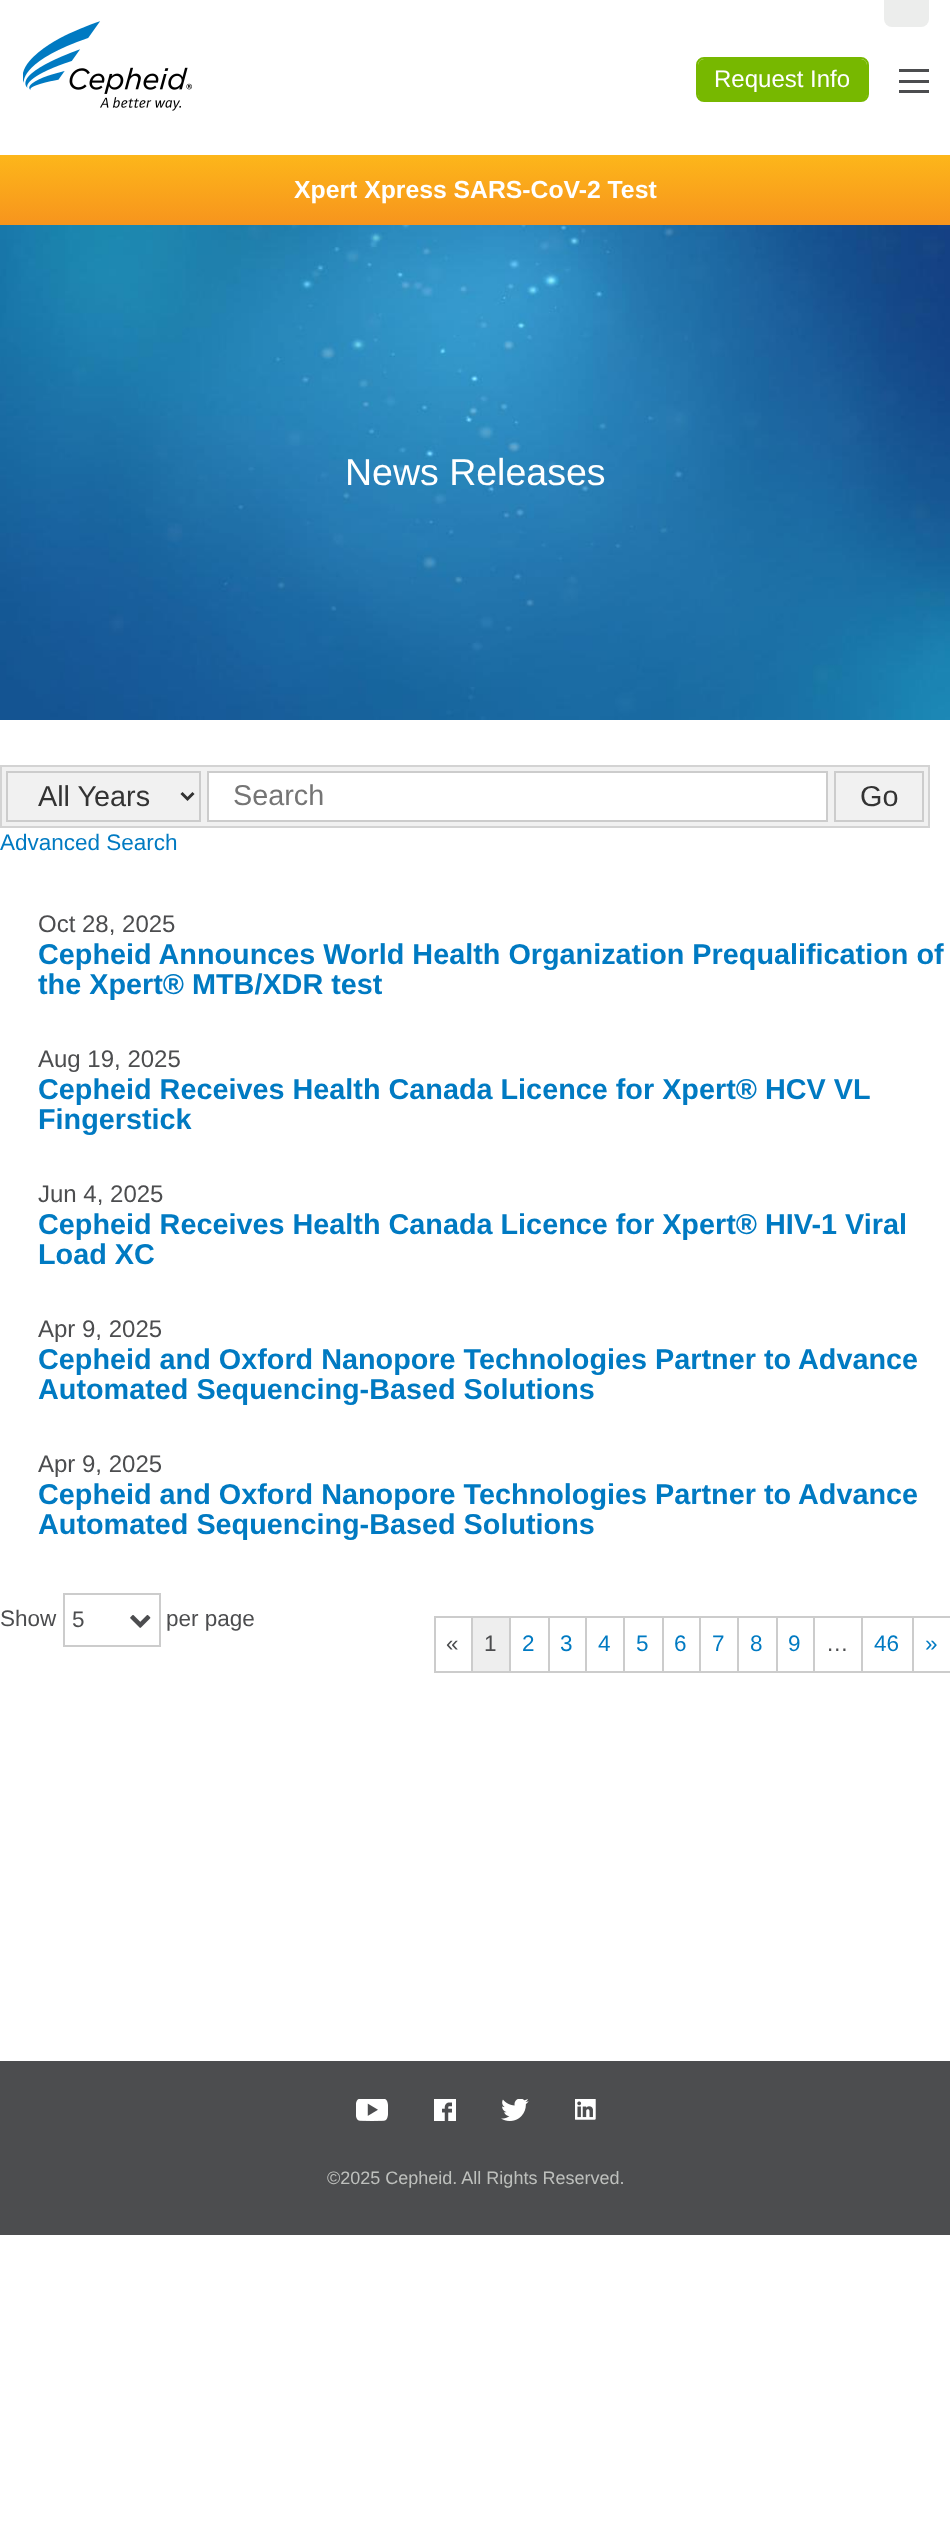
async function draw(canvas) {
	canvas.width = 950;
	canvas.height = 2521;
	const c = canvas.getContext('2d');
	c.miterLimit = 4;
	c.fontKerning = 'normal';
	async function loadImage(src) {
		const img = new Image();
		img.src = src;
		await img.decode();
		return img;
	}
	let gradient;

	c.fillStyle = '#fff';
	c.fillRect(0, 0, 950, 2521);
	c.drawImage(await loadImage('img1.png'), 23, 21, 169, 90);
	c.fillStyle = '#ecedec';
	c.beginPath();
	c.roundRect(884, 0, 45, 27, [0, 0, 8, 8]);
	c.fill();
	c.beginPath();
	c.roundRect(697, 58, 171, 43, 7);
	c.strokeStyle = '#77b800';
	c.lineWidth = 2;
	c.stroke();
	c.fillStyle = '#77b800';
	c.beginPath();
	c.roundRect(698, 59, 169, 42, 6);
	c.fill();
	c.font = '24px Liberation Sans';
	c.fillStyle = '#fff';
	c.fillText('Request Info', 714, 87);
	for (const [x, y, w, h, color] of [
		[899, 69, 30, 3, '#4c4d4f'],
		[899, 80, 30, 3, '#4c4d4f'],
		[899, 90, 30, 3, '#4c4d4f'],
	]) {
		c.fillStyle = color;
		c.fillRect(x, y, w, h);
	}
	gradient = c.createLinearGradient(476, 154, 476, 225);
	gradient.addColorStop(0, '#fdb71a');
	gradient.addColorStop(1, '#f7941d');
	c.fillStyle = gradient;
	c.fillRect(0, 155, 950, 70);
	c.font = 'bold 24.75px Liberation Sans';
	c.fillStyle = '#fff';
	c.fillText('Xpert Xpress SARS-CoV-2 Test', 294, 198);
	c.drawImage(await loadImage('img2.png'), 0, 225, 950, 495);
	c.font = '37.5px Liberation Sans';
	c.fillText('News Releases', 345, 485);
	c.fillStyle = '#f1f1f1';
	c.beginPath();
	c.rect(1, 766, 928, 61);
	c.fill();
	c.strokeStyle = '#d3d3d3';
	c.stroke();
	c.strokeStyle = '#ccc';
	c.strokeRect(7, 772, 193, 49);
	c.beginPath();
	c.moveTo(181.5, 793);
	c.lineTo(187.5, 799);
	c.lineTo(193.5, 793);
	c.strokeStyle = '#333';
	c.lineWidth = 3;
	c.stroke();
	c.font = '28.8px Liberation Sans';
	c.fillStyle = '#333';
	c.fillText('All Years', 38, 806);
	c.fillStyle = '#fff';
	c.beginPath();
	c.rect(208, 772, 619, 49);
	c.fill();
	c.strokeStyle = '#ccc';
	c.lineWidth = 2;
	c.stroke();
	c.fillStyle = '#757575';
	c.fillText('Search', 233, 805);
	c.strokeRect(835, 772, 88, 49);
	c.fillStyle = '#333';
	c.fillText('Go', 860, 806);
	c.font = '22.5px Liberation Sans';
	c.fillStyle = '#007ac2';
	c.fillText('Advanced Search', 0, 850);
	c.font = '24px Liberation Sans';
	c.fillStyle = '#4c4d4f';
	c.fillText('Oct 28, 2025', 38, 932);
	c.font = 'bold 28.8px Liberation Sans';
	c.fillStyle = '#007ac2';
	c.fillText('Cepheid Announces World Health Organization Prequalification of', 38, 964);
	c.save();
	c.beginPath();
	c.rect(38, 896, 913, 120);
	c.clip();
	c.fillText('the Xpert® MTB/XDR test', 38, 994);
	c.restore();
	c.font = '24px Liberation Sans';
	c.fillStyle = '#4c4d4f';
	c.fillText('Aug 19, 2025', 38, 1067);
	c.font = 'bold 28.8px Liberation Sans';
	c.fillStyle = '#007ac2';
	c.fillText('Cepheid Receives Health Canada Licence for Xpert® HCV VL', 38, 1099);
	c.fillText('Fingerstick', 38, 1129);
	c.font = '24px Liberation Sans';
	c.fillStyle = '#4c4d4f';
	c.fillText('Jun 4, 2025', 38, 1202);
	c.font = 'bold 28.8px Liberation Sans';
	c.fillStyle = '#007ac2';
	c.fillText('Cepheid Receives Health Canada Licence for Xpert® HIV-1 Viral', 38, 1234);
	c.fillText('Load XC', 38, 1264);
	c.font = '24px Liberation Sans';
	c.fillStyle = '#4c4d4f';
	c.fillText('Apr 9, 2025', 38, 1337);
	c.font = 'bold 28.8px Liberation Sans';
	c.fillStyle = '#007ac2';
	c.fillText('Cepheid and Oxford Nanopore Technologies Partner to Advance', 38, 1369);
	c.fillText('Automated Sequencing-Based Solutions', 38, 1399);
	c.font = '24px Liberation Sans';
	c.fillStyle = '#4c4d4f';
	c.fillText('Apr 9, 2025', 38, 1472);
	c.font = 'bold 28.8px Liberation Sans';
	c.fillStyle = '#007ac2';
	c.fillText('Cepheid and Oxford Nanopore Technologies Partner to Advance', 38, 1504);
	c.fillText('Automated Sequencing-Based Solutions', 38, 1534);
	c.font = '22.5px Liberation Sans';
	c.fillStyle = '#4c4d4f';
	c.fillText('Show', 0, 1626);
	c.strokeRect(64, 1594, 96, 52);
	c.fillText('5', 72, 1627);
	c.drawImage(await loadImage('img3.png'), 130, 1615, 21, 13);
	c.fillText('per page', 166, 1626);
	c.strokeRect(435, 1617, 37, 55);
	c.fillText('«', 446, 1651);
	for (const [x, y, w, h, color] of [
		[473, 1618, 36, 53, '#eee'],
		[473, 1616, 37, 2, '#ccc'],
		[509, 1616, 2, 57, '#ccc'],
		[473, 1671, 37, 2, '#ccc'],
	]) {
		c.fillStyle = color;
		c.fillRect(x, y, w, h);
	}
	c.fillStyle = '#4c4d4f';
	c.fillText('1', 484, 1651);
	for (const [x, y, w, h, color] of [
		[510, 1616, 39, 2, '#ccc'],
		[548, 1616, 2, 57, '#ccc'],
		[510, 1671, 39, 2, '#ccc'],
	]) {
		c.fillStyle = color;
		c.fillRect(x, y, w, h);
	}
	c.fillStyle = '#007ac2';
	c.fillText('2', 522, 1651);
	for (const [x, y, w, h, color] of [
		[549, 1616, 75, 2, '#ccc'],
		[585, 1616, 2, 57, '#ccc'],
		[549, 1671, 38, 2, '#ccc'],
	]) {
		c.fillStyle = color;
		c.fillRect(x, y, w, h);
	}
	c.fillStyle = '#007ac2';
	c.fillText('3', 560, 1651);
	c.fillStyle = '#ccc';
	c.fillRect(623, 1616, 2, 57);
	c.fillRect(587, 1671, 37, 2);
	c.fillStyle = '#007ac2';
	c.fillText('4', 598, 1651);
	for (const [x, y, w, h, color] of [
		[624, 1616, 39, 2, '#ccc'],
		[662, 1616, 2, 57, '#ccc'],
		[624, 1671, 39, 2, '#ccc'],
	]) {
		c.fillStyle = color;
		c.fillRect(x, y, w, h);
	}
	c.fillStyle = '#007ac2';
	c.fillText('5', 636, 1651);
	for (const [x, y, w, h, color] of [
		[663, 1616, 75, 2, '#ccc'],
		[699, 1616, 2, 57, '#ccc'],
		[663, 1671, 38, 2, '#ccc'],
	]) {
		c.fillStyle = color;
		c.fillRect(x, y, w, h);
	}
	c.fillStyle = '#007ac2';
	c.fillText('6', 674, 1651);
	c.fillStyle = '#ccc';
	c.fillRect(737, 1616, 2, 57);
	c.fillRect(701, 1671, 37, 2);
	c.fillStyle = '#007ac2';
	c.fillText('7', 712, 1651);
	for (const [x, y, w, h, color] of [
		[738, 1616, 39, 2, '#ccc'],
		[776, 1616, 2, 57, '#ccc'],
		[738, 1671, 39, 2, '#ccc'],
	]) {
		c.fillStyle = color;
		c.fillRect(x, y, w, h);
	}
	c.fillStyle = '#007ac2';
	c.fillText('8', 750, 1651);
	for (const [x, y, w, h, color] of [
		[777, 1616, 173, 2, '#ccc'],
		[813, 1616, 2, 57, '#ccc'],
		[777, 1671, 38, 2, '#ccc'],
	]) {
		c.fillStyle = color;
		c.fillRect(x, y, w, h);
	}
	c.fillStyle = '#007ac2';
	c.fillText('9', 788, 1651);
	c.fillStyle = '#ccc';
	c.fillRect(861, 1616, 2, 57);
	c.fillRect(815, 1671, 48, 2);
	c.fillStyle = '#4c4d4f';
	c.fillText('…', 826, 1651);
	c.fillStyle = '#ccc';
	c.fillRect(912, 1616, 2, 57);
	c.fillRect(863, 1671, 87, 2);
	c.fillStyle = '#007ac2';
	c.fillText('46', 874, 1651);
	c.fillText('»', 925, 1651);
	c.fillStyle = '#4c4d4f';
	c.fillRect(0, 2061, 950, 174);
	c.drawImage(await loadImage('img4.png'), 356, 2099, 32, 22);
	c.drawImage(await loadImage('img5.png'), 434, 2099, 22, 22);
	c.drawImage(await loadImage('img6.png'), 501, 2099, 28, 22);
	c.drawImage(await loadImage('img7.png'), 575, 2099, 21, 21);
	c.font = '18px Liberation Sans';
	c.fillStyle = '#bec0bd';
	c.fillText('©2025 Cepheid. All Rights Reserved.', 327, 2184);
}

draw(document.querySelector('canvas'));
